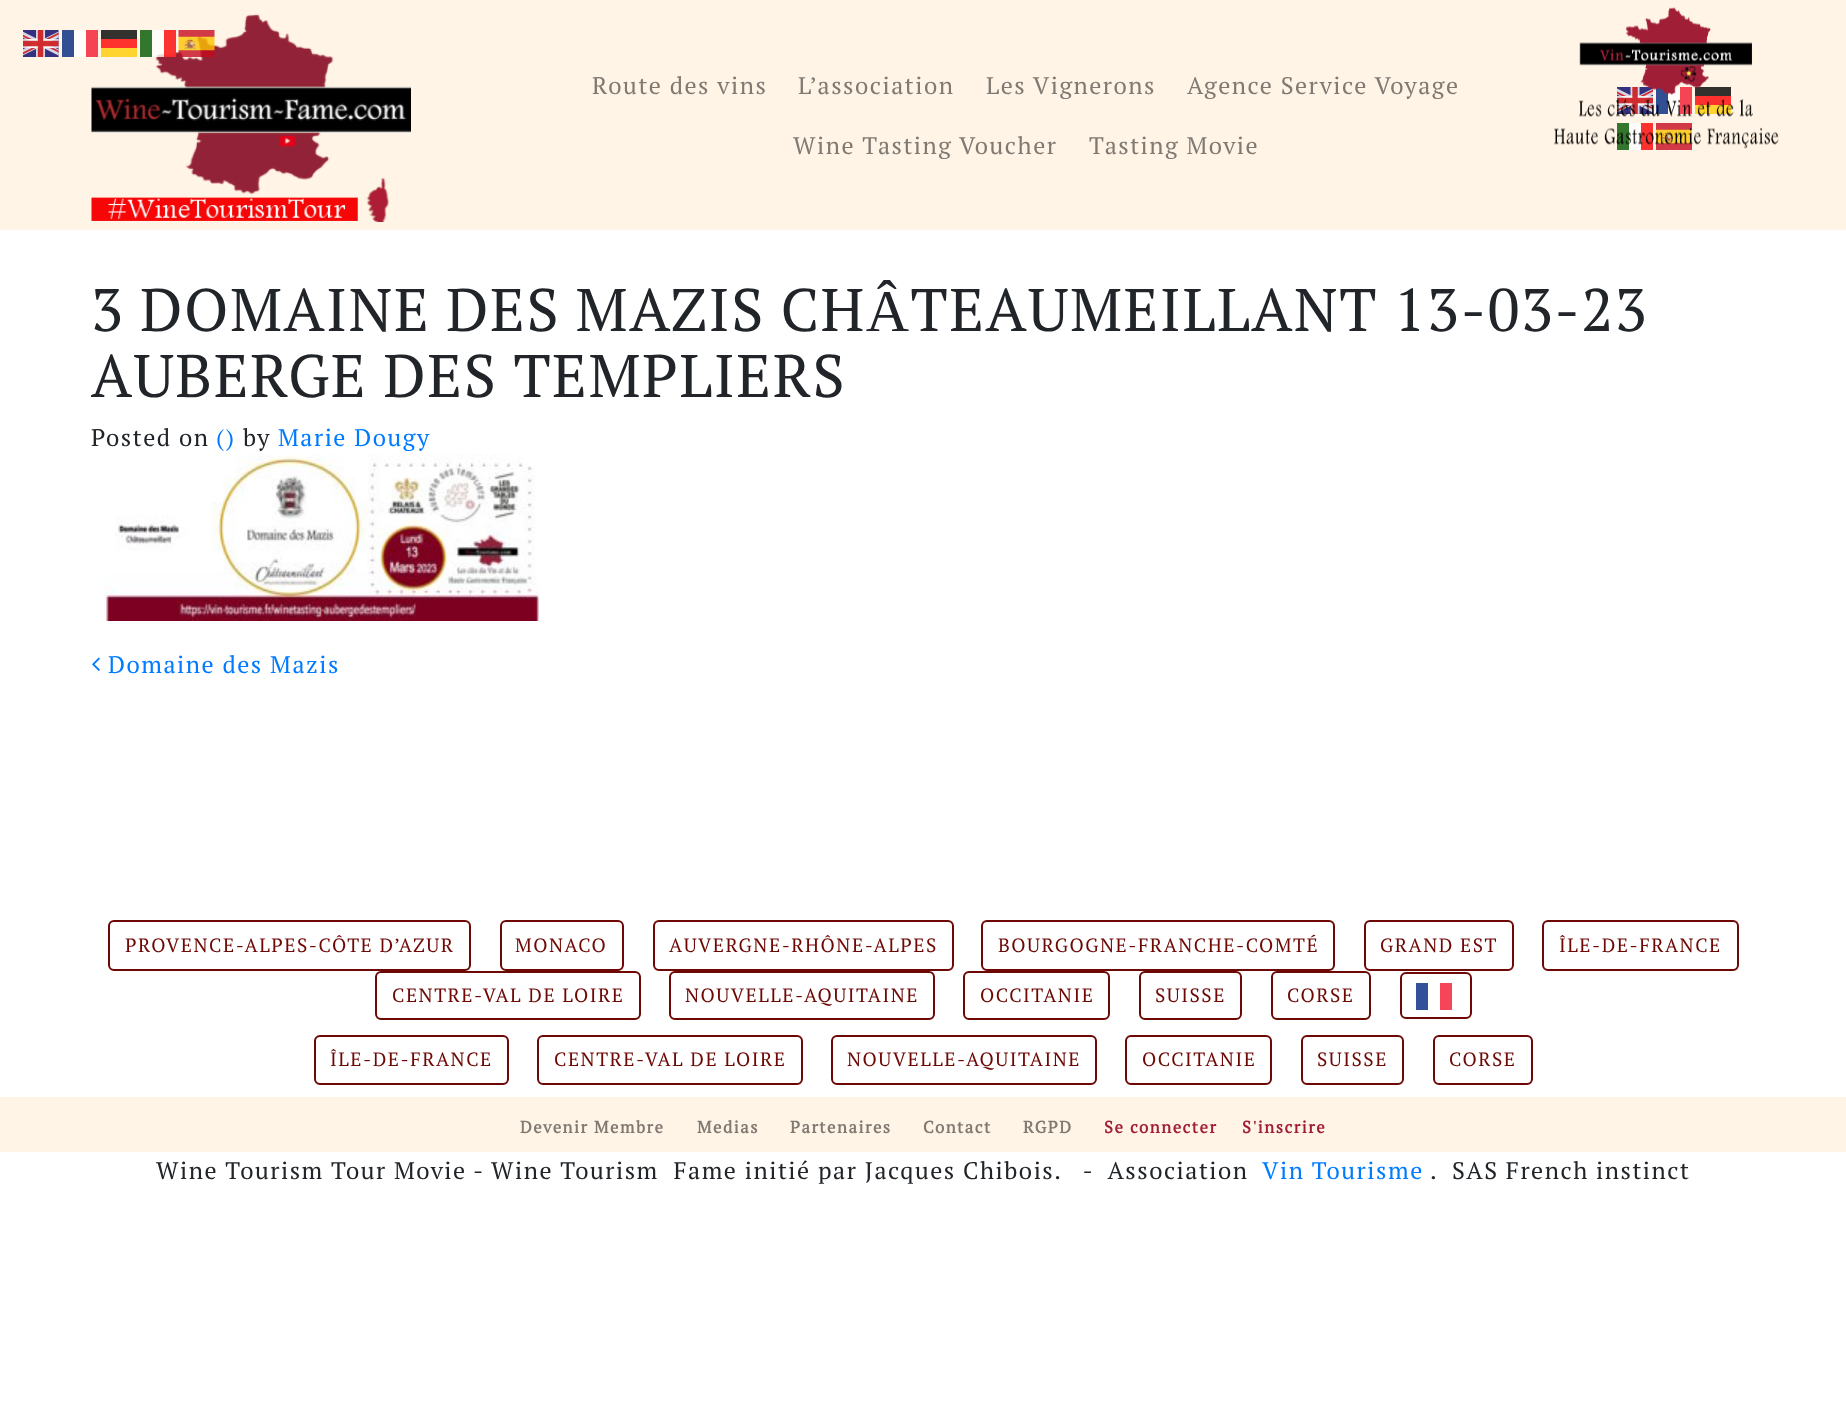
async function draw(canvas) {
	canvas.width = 1846;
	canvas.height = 1428;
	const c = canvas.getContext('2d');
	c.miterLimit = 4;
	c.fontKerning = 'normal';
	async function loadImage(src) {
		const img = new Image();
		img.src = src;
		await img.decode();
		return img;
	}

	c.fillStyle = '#fff';
	c.fillRect(0, 0, 1846, 1428);
	c.fillStyle = '#fff4e5';
	c.fillRect(0, 0, 1846, 230);
	c.drawImage(await loadImage('img1.png'), 23, 30, 36, 27);
	c.fillStyle = '#334f93';
	c.fillRect(62, 30, 12, 27);
	c.fillStyle = '#fffdfa';
	c.fillRect(74, 30, 12, 27);
	c.drawImage(await loadImage('img4.png'), 91, 14, 320, 208);
	for (const [x, y, w, h, color] of [
		[86, 30, 12, 27, '#f54454'],
		[101, 30, 36, 9, '#33312e'],
		[140, 30, 12, 27, '#33762e'],
		[152, 30, 24, 27, '#ffffffcc'],
		[101, 39, 36, 9, '#ff312e'],
		[164, 30, 12, 27, '#fc0000cc'],
	]) {
		c.fillStyle = color;
		c.fillRect(x, y, w, h);
	}
	c.drawImage(await loadImage('img2.png'), 178, 30, 37, 27);
	c.fillStyle = '#ffd42e';
	c.fillRect(101, 48, 36, 9);
	c.drawImage(await loadImage('img5.png'), 1617, 87, 36, 27);
	for (const [x, y, w, h, color] of [
		[1656, 87, 12, 27, '#334f93'],
		[1668, 87, 12, 27, '#fffdfa'],
		[1680, 87, 12, 27, '#f54454'],
		[1695, 87, 36, 9, '#33312e'],
		[1695, 96, 36, 9, '#ff312e'],
		[1695, 105, 36, 9, '#ffd42e'],
		[1617, 123, 12, 27, '#33762e'],
		[1629, 123, 12, 27, '#fffdfa'],
		[1641, 123, 12, 27, '#fd312e'],
	]) {
		c.fillStyle = color;
		c.fillRect(x, y, w, h);
	}
	c.drawImage(await loadImage('img6.png'), 1656, 123, 36, 27);
	c.drawImage(await loadImage('img3.png'), 1554, 7, 225, 142);
	c.letterSpacing = '1.5px';
	c.font = '24px PT Serif';
	c.fillStyle = '#807a73';
	for (const [text, x, y] of [
		['Route des vins', 592, 94],
		['L’association', 798, 94],
		['Les Vignerons', 986, 94],
		['Agence Service Voyage', 1187, 94],
		['Wine Tasting Voucher', 793, 154],
		['Tasting Movie', 1089, 154],
	]) {
		c.fillText(text, x, y);
	}
	c.wordSpacing = '-0.5px';
	c.font = '60px PT Serif';
	c.fillStyle = '#212529';
	c.fillText('3 DOMAINE DES MAZIS CHÂTEAUMEILLANT 13-03-23', 91, 331);
	c.wordSpacing = '0px';
	c.fillText('AUBERGE DES TEMPLIERS', 91, 397);
	c.font = '24px PT Serif';
	c.fillText('Posted on', 91, 446);
	c.fillStyle = '#007bff';
	c.fillText('()', 216, 446);
	c.fillStyle = '#212529';
	c.fillText('by', 243, 446);
	c.fillStyle = '#007bff';
	c.fillText('Marie Dougy', 278, 446);
	c.drawImage(await loadImage('img7.png'), 103, 454, 437, 167);
	c.drawImage(await loadImage('img8.png'), 92, 657, 8, 14);
	c.fillText('Domaine des Mazis', 108, 673);
	c.beginPath();
	c.roundRect(109, 921, 361, 49, 5);
	c.strokeStyle = '#6d0804';
	c.lineWidth = 2;
	c.stroke();
	c.font = '19.25px PT Serif';
	c.fillStyle = '#6d0804';
	c.fillText('PROVENCE-ALPES-CÔTE D’AZUR', 125, 952);
	c.beginPath();
	c.roundRect(501, 921, 122, 49, 5);
	c.stroke();
	c.fillText('MONACO', 515, 952);
	c.beginPath();
	c.roundRect(654, 921, 299, 49, 5);
	c.stroke();
	c.fillText('AUVERGNE-RHÔNE-ALPES', 669, 952);
	c.beginPath();
	c.roundRect(982, 921, 352, 49, 5);
	c.stroke();
	c.fillText('BOURGOGNE-FRANCHE-COMTÉ', 998, 952);
	c.beginPath();
	c.roundRect(1365, 921, 148, 49, 5);
	c.stroke();
	c.fillText('GRAND EST', 1380, 952);
	c.beginPath();
	c.roundRect(1543, 921, 195, 49, 5);
	c.stroke();
	c.fillText('ÎLE-DE-FRANCE', 1559, 952);
	c.beginPath();
	c.roundRect(376, 972, 264, 47, 5);
	c.stroke();
	c.fillText('CENTRE-VAL DE LOIRE', 392, 1002);
	c.beginPath();
	c.roundRect(670, 972, 264, 47, 5);
	c.stroke();
	c.fillText('NOUVELLE-AQUITAINE', 685, 1002);
	c.beginPath();
	c.roundRect(964, 972, 145, 47, 5);
	c.stroke();
	c.fillText('OCCITANIE', 980, 1002);
	c.beginPath();
	c.roundRect(1140, 972, 101, 47, 5);
	c.stroke();
	c.fillText('SUISSE', 1155, 1002);
	c.beginPath();
	c.roundRect(1272, 972, 98, 47, 5);
	c.stroke();
	c.fillText('CORSE', 1287, 1002);
	c.beginPath();
	c.roundRect(1401, 973, 70, 45, 5);
	c.stroke();
	c.fillStyle = '#335199';
	c.fillRect(1416, 983, 12, 27);
	c.fillStyle = '#f54659';
	c.fillRect(1440, 983, 12, 27);
	c.beginPath();
	c.roundRect(315, 1036, 193, 48, 5);
	c.stroke();
	c.fillStyle = '#6d0804';
	c.fillText('ÎLE-DE-FRANCE', 330, 1066);
	c.beginPath();
	c.roundRect(538, 1036, 264, 48, 5);
	c.stroke();
	c.fillText('CENTRE-VAL DE LOIRE', 554, 1066);
	c.beginPath();
	c.roundRect(832, 1036, 264, 48, 5);
	c.stroke();
	c.fillText('NOUVELLE-AQUITAINE', 847, 1066);
	c.beginPath();
	c.roundRect(1126, 1036, 145, 48, 5);
	c.stroke();
	c.fillText('OCCITANIE', 1142, 1066);
	c.beginPath();
	c.roundRect(1302, 1036, 101, 48, 5);
	c.stroke();
	c.fillText('SUISSE', 1317, 1066);
	c.beginPath();
	c.roundRect(1434, 1036, 98, 48, 5);
	c.stroke();
	c.fillText('CORSE', 1449, 1066);
	c.fillStyle = '#fff4e5';
	c.fillRect(0, 1097, 1846, 55);
	c.font = 'bold 16.75px PT Serif';
	c.fillStyle = '#807a73';
	for (const [text, x, y] of [
		['Devenir Membre', 520, 1133],
		['Medias', 697, 1133],
		['Partenaires', 790, 1133],
		['Contact', 923, 1133],
		['RGPD', 1023, 1133],
	]) {
		c.fillText(text, x, y);
	}
	c.fillStyle = '#a11e37';
	c.fillText('Se connecter', 1104, 1133);
	c.fillText('S\'inscrire', 1242, 1133);
	c.font = '24px PT Serif';
	c.fillStyle = '#212529';
	c.fillText('Wine Tourism Tour Movie - Wine Tourism  Fame initié par Jacques Chibois.   -  Association', 156, 1179);
	c.fillStyle = '#007bff';
	c.fillText('Vin Tourisme', 1262, 1179);
	c.fillStyle = '#212529';
	c.fillText('.  SAS French instinct', 1430, 1179);
}

draw(document.querySelector('canvas'));
